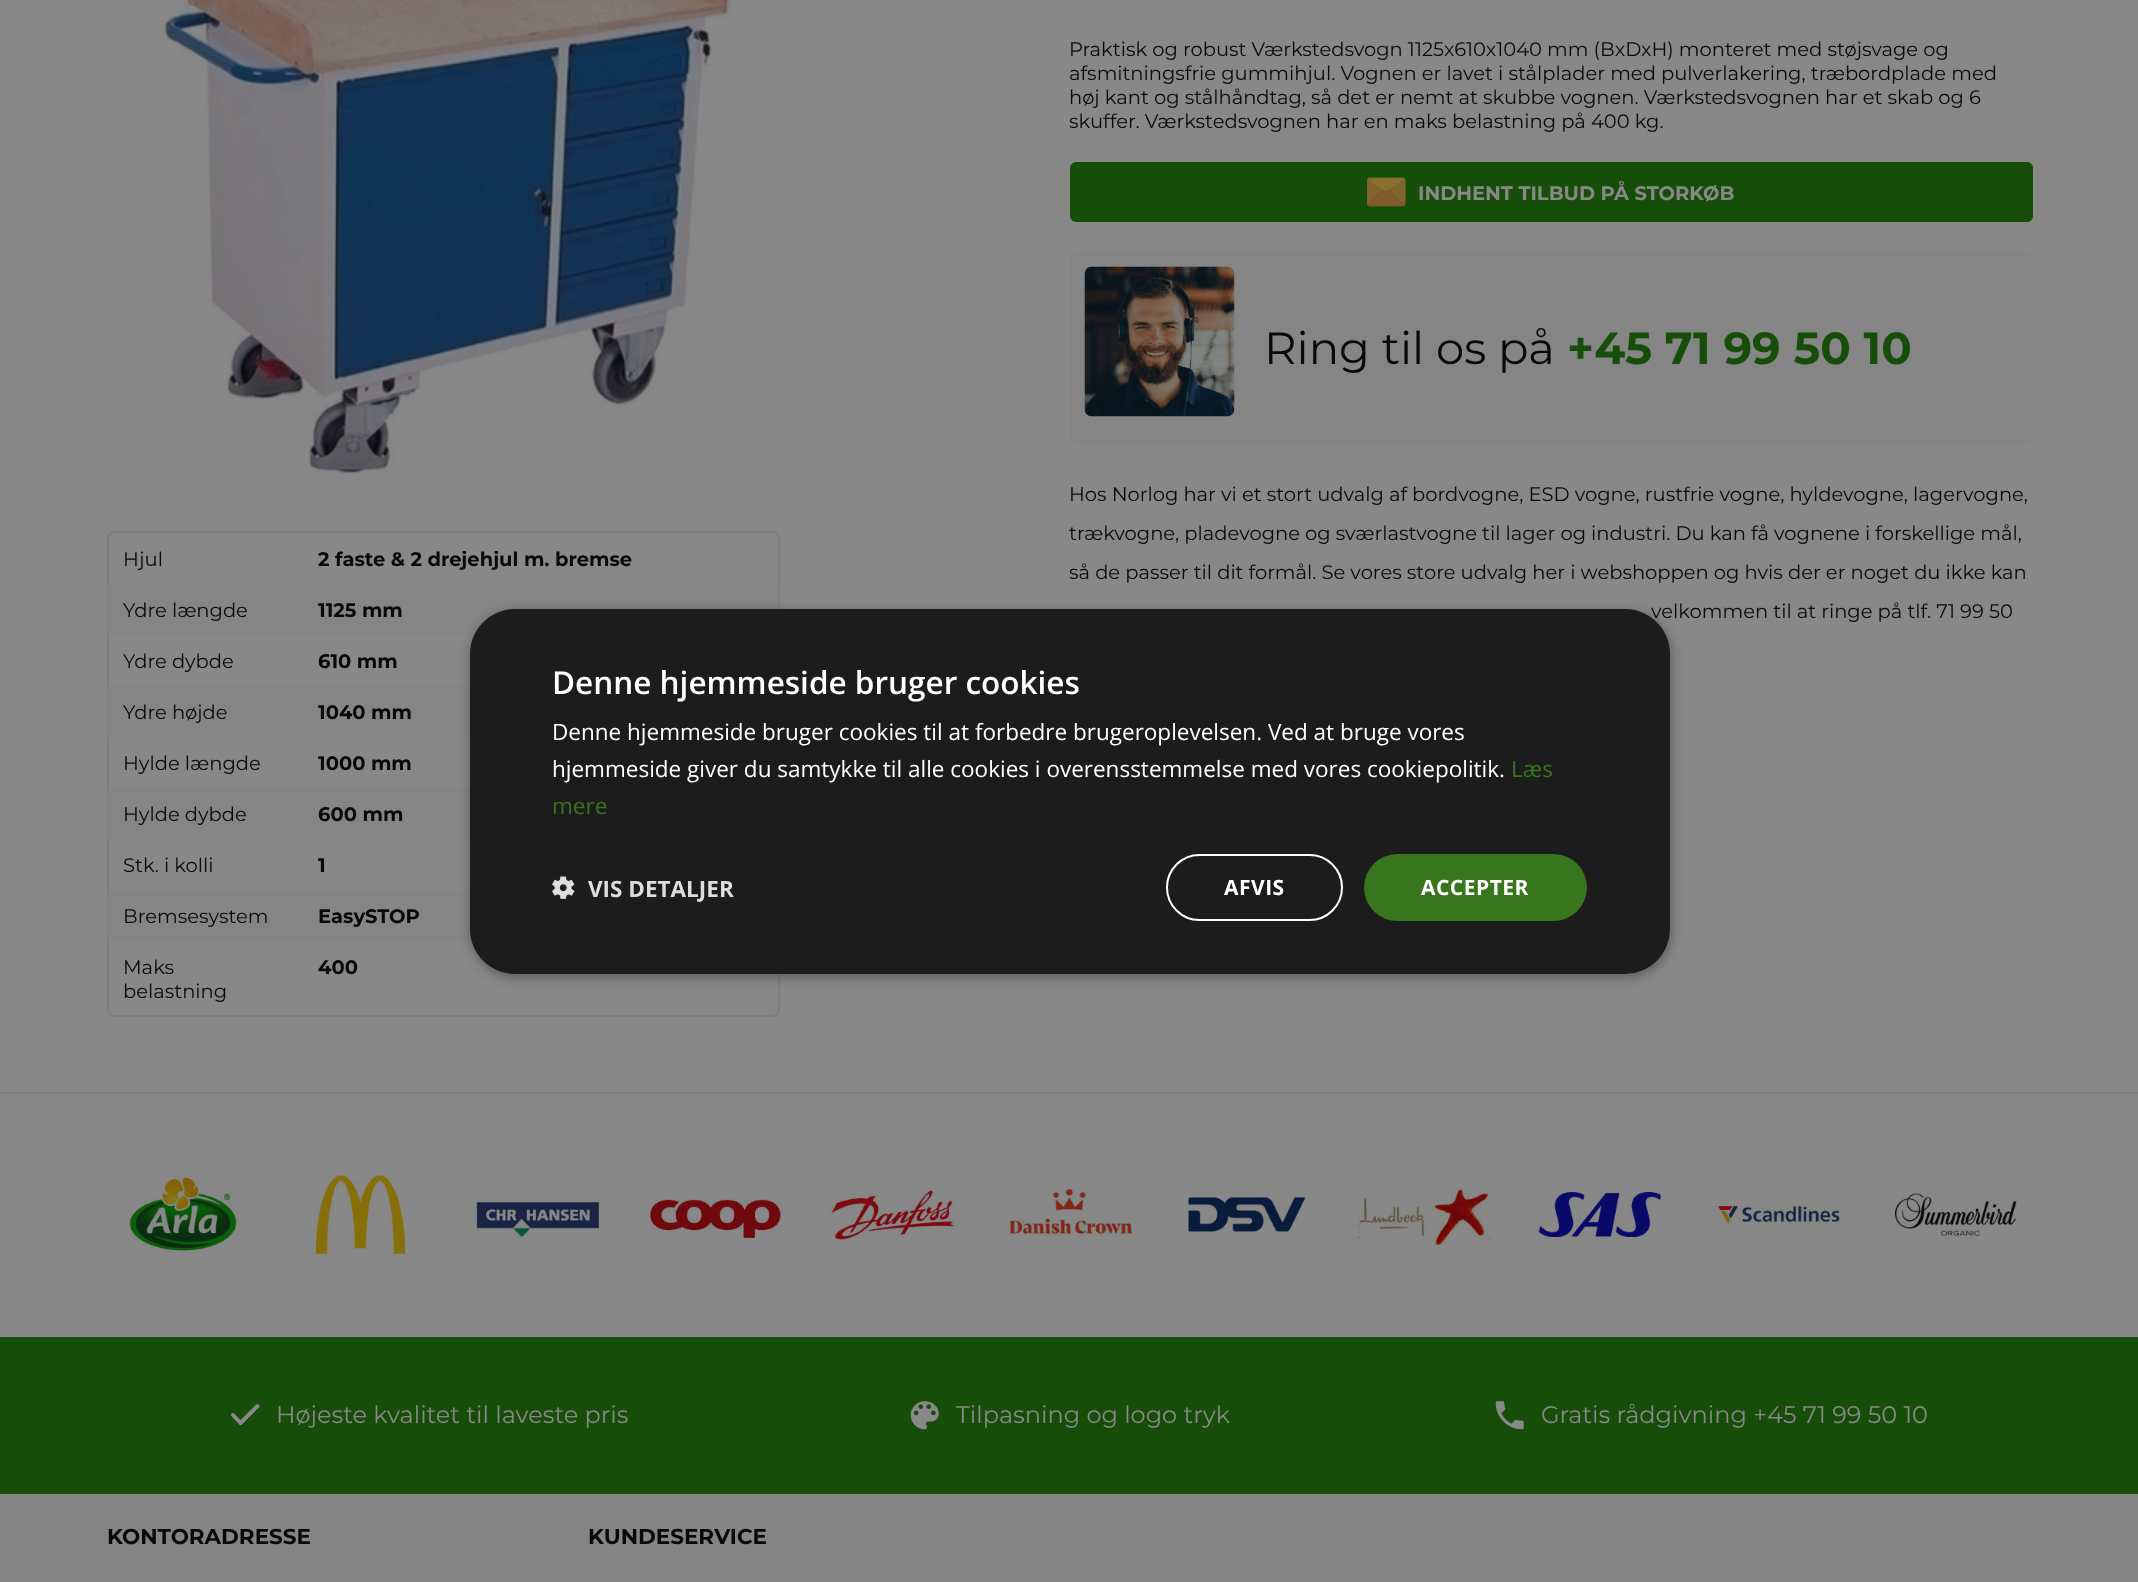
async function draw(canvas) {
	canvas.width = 2138;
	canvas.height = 1582;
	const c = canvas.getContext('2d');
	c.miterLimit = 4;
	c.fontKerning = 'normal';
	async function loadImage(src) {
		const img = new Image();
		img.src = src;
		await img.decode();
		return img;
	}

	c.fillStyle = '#888';
	c.fillRect(0, 0, 2138, 1582);
	c.font = '19.5px Montserrat';
	c.fillStyle = '#090909';
	for (const [text, x, y] of [
		['Praktisk og robust Værkstedsvogn 1125x610x1040 mm (BxDxH) monteret med støjsvage og', 1069, 56],
		['afsmitningsfrie gummihjul. Vognen er lavet i stålplader med pulverlakering, træbordplade med', 1069, 80],
		['høj kant og stålhåndtag, så det er nemt at skubbe vognen. Værkstedsvognen har et skab og 6', 1069, 104],
		['skuffer. Værkstedsvognen har en maks belastning på 400 kg.', 1069, 128],
	]) {
		c.fillText(text, x, y);
	}
	c.fillStyle = '#164e09';
	c.beginPath();
	c.roundRect(1070, 162, 963, 60, 6);
	c.fill();
	c.drawImage(await loadImage('img1.png'), 1367, 177, 39, 30);
	c.font = 'bold 19.5px Montserrat';
	c.fillStyle = '#888';
	c.fillText('INDHENT TILBUD PÅ STORKØB', 1418, 200);
	c.fillStyle = '#858585';
	c.beginPath();
	c.roundRect(1070, 252, 963, 192, 8);
	c.fill();
	c.drawImage(await loadImage('img2.png'), 1084, 266, 151, 151);
	c.font = '45px Montserrat';
	c.fillStyle = '#090909';
	c.fillText('Ring til os på', 1264, 364);
	c.font = 'bold 45px Montserrat';
	c.fillStyle = '#164e09';
	c.fillText('+45 71 99 50 10', 1567, 364);
	c.font = '19.5px Montserrat';
	c.fillStyle = '#090909';
	for (const [text, x, y] of [
		['Hos Norlog har vi et stort udvalg af bordvogne, ESD vogne, rustfrie vogne, hyldevogne, lagervogne,', 1069, 501],
		['trækvogne, pladevogne og sværlastvogne til lager og industri. Du kan få vognene i forskellige mål,', 1069, 540],
		['så de passer til dit formål. Se vores store udvalg her i webshoppen og hvis der er noget du ikke kan', 1069, 579],
		['velkommen til at ringe på tlf. 71 99 50', 1651, 618],
	]) {
		c.fillText(text, x, y);
	}
	c.drawImage(await loadImage('img3.png'), 156, 0, 576, 476);
	c.beginPath();
	c.roundRect(108, 532, 671, 484, 7);
	c.strokeStyle = '#7e7e7e';
	c.lineWidth = 2;
	c.stroke();
	c.fillText('Hjul', 123, 566);
	c.font = 'bold 19.5px Montserrat';
	c.fillText('2 faste & 2 drejehjul m. bremse', 318, 566);
	c.fillStyle = '#858585';
	c.fillRect(108, 584, 671, 51);
	c.font = '19.5px Montserrat';
	c.fillStyle = '#090909';
	c.fillText('Ydre længde', 123, 617);
	c.font = 'bold 19.5px Montserrat';
	c.fillText('1125 mm', 318, 617);
	c.font = '19.5px Montserrat';
	c.fillText('Ydre dybde', 123, 668);
	c.font = 'bold 19.5px Montserrat';
	c.fillText('610 mm', 318, 668);
	c.fillStyle = '#858585';
	c.fillRect(108, 686, 362, 51);
	c.font = '19.5px Montserrat';
	c.fillStyle = '#090909';
	c.fillText('Ydre højde', 123, 719);
	c.font = 'bold 19.5px Montserrat';
	c.fillText('1040 mm', 318, 719);
	c.font = '19.5px Montserrat';
	c.fillText('Hylde længde', 123, 770);
	c.font = 'bold 19.5px Montserrat';
	c.fillText('1000 mm', 318, 770);
	c.fillStyle = '#858585';
	c.fillRect(108, 788, 362, 51);
	c.font = '19.5px Montserrat';
	c.fillStyle = '#090909';
	c.fillText('Hylde dybde', 123, 821);
	c.font = 'bold 19.5px Montserrat';
	c.fillText('600 mm', 318, 821);
	c.font = '19.5px Montserrat';
	c.fillText('Stk. i kolli', 123, 872);
	c.font = 'bold 19.5px Montserrat';
	c.fillText('1', 318, 872);
	c.fillStyle = '#858585';
	c.fillRect(108, 890, 364, 51);
	c.font = '19.5px Montserrat';
	c.fillStyle = '#090909';
	c.fillText('Bremsesystem', 123, 923);
	c.font = 'bold 19.5px Montserrat';
	c.fillText('EasySTOP', 318, 923);
	c.font = '19.5px Montserrat';
	c.fillText('Maks', 123, 974);
	c.fillText('belastning', 123, 998);
	c.font = 'bold 19.5px Montserrat';
	c.fillText('400', 318, 974);
	c.fillStyle = '#00000059';
	c.filter = 'blur(6px)';
	c.beginPath();
	c.roundRect(471, 612, 1200, 365, 45);
	c.fill();
	c.filter = 'none';
	c.fillStyle = '#1c1c1c';
	c.beginPath();
	c.roundRect(470, 609, 1200, 365, 45);
	c.fill();
	c.font = '600 31.5px Open Sans';
	c.fillStyle = '#fff';
	c.fillText('Denne hjemmeside bruger cookies', 552, 694);
	c.font = '22.5px Open Sans';
	c.fillText('Denne hjemmeside bruger cookies til at forbedre brugeroplevelsen. Ved at bruge vores', 552, 740);
	c.fillText('hjemmeside giver du samtykke til alle cookies i overensstemmelse med vores cookiepolitik.', 552, 777);
	c.fillStyle = '#38761d';
	c.fillText('Læs', 1511, 777);
	c.fillText('mere', 552, 814);
	c.drawImage(await loadImage('img4.png'), 552, 876, 23, 23);
	c.font = 'bold 22.5px Open Sans';
	c.fillStyle = '#ddd';
	c.fillText('VIS DETALJER', 588, 897);
	c.beginPath();
	c.roundRect(1167, 855, 175, 65, 32.5);
	c.strokeStyle = '#fff';
	c.stroke();
	c.letterSpacing = '0.5px';
	c.font = 'bold 21px Open Sans';
	c.fillStyle = '#fff';
	c.fillText('AFVIS', 1224, 895);
	c.fillStyle = '#38761d';
	c.beginPath();
	c.roundRect(1364, 854, 223, 67, 33.5);
	c.fill();
	c.fillStyle = '#fff';
	c.fillText('ACCEPTER', 1421, 895);
	c.fillStyle = '#848484';
	c.fillRect(0, 1494, 2138, 88);
	c.fillStyle = '#808080';
	c.fillRect(0, 1092, 2138, 2);
	c.drawImage(await loadImage('img5.png'), 125, 1174, 112, 81);
	c.drawImage(await loadImage('img6.png'), 314, 1174, 93, 81);
	c.drawImage(await loadImage('img7.png'), 473, 1199, 130, 42);
	c.drawImage(await loadImage('img8.png'), 650, 1199, 136, 44);
	c.drawImage(await loadImage('img9.png'), 828, 1187, 129, 56);
	c.drawImage(await loadImage('img10.png'), 1005, 1187, 129, 49);
	c.drawImage(await loadImage('img11.png'), 1188, 1193, 117, 43);
	c.drawImage(await loadImage('img12.png'), 1353, 1186, 141, 63);
	c.drawImage(await loadImage('img13.png'), 1536, 1187, 129, 55);
	c.drawImage(await loadImage('img14.png'), 1713, 1205, 130, 19);
	c.drawImage(await loadImage('img15.png'), 1895, 1193, 123, 44);
	c.fillStyle = '#164e09';
	c.fillRect(0, 1337, 2138, 157);
	c.beginPath();
	c.moveTo(257.5, 1406);
	c.lineTo(240.5, 1423);
	c.lineTo(233, 1415);
	c.strokeStyle = '#888';
	c.lineWidth = 3.9;
	c.lineCap = 'round';
	c.lineJoin = 'round';
	c.stroke();
	c.letterSpacing = '0px';
	c.font = '24px Montserrat';
	c.fillStyle = '#888';
	c.fillText('Højeste kvalitet til laveste pris', 276, 1423);
	c.drawImage(await loadImage('img16.png'), 910, 1401, 29, 29);
	c.fillText('Tilpasning og logo tryk', 956, 1423);
	c.drawImage(await loadImage('img17.png'), 1495, 1401, 29, 29);
	c.fillText('Gratis rådgivning +45 71 99 50 10', 1541, 1423);
	c.font = 'bold 21.5px Montserrat';
	c.fillStyle = '#090909';
	c.fillText('KONTORADRESSE', 107, 1544);
	c.fillText('KUNDESERVICE', 588, 1544);
}

draw(document.querySelector('canvas'));
